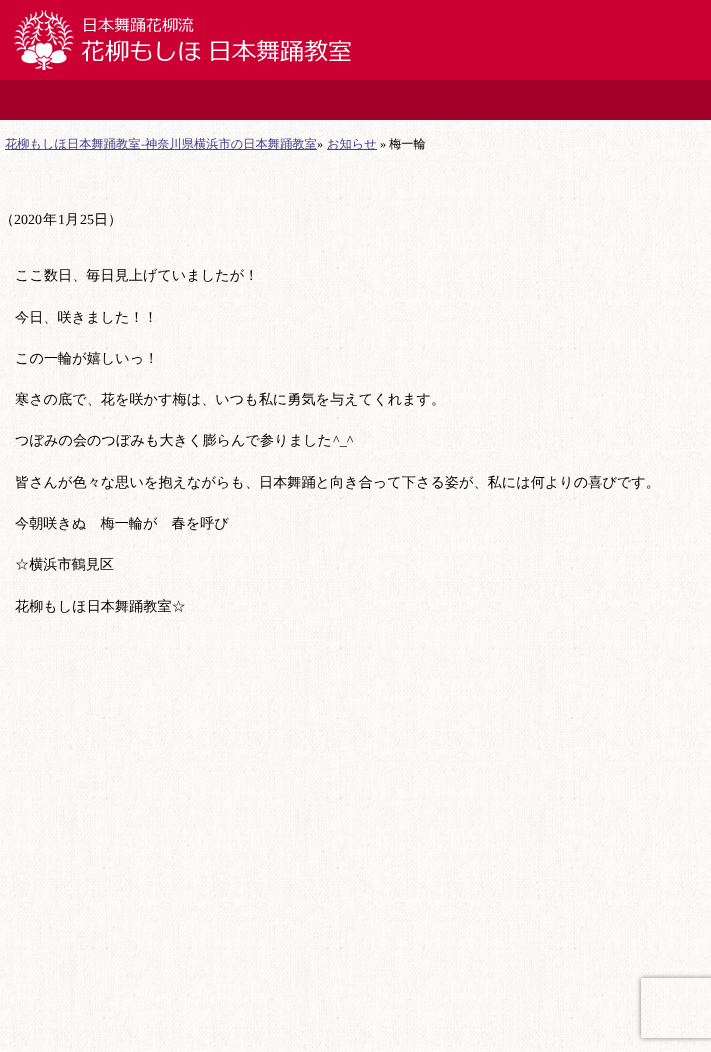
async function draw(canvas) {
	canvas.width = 711;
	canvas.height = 1052;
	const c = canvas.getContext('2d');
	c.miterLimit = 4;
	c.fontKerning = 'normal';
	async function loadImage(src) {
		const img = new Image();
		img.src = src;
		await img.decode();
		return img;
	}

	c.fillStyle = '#fff';
	c.fillRect(0, 0, 711, 1052);
	c.drawImage(await loadImage('img1.png'), 0, 120, 711, 932);
	c.fillStyle = '#c03';
	c.fillRect(0, 0, 711, 80);
	c.drawImage(await loadImage('img2.png'), 14, 10, 337, 60);
	c.fillStyle = '#a20028';
	c.fillRect(0, 80, 711, 40);
	c.fillStyle = '#40428c';
	c.fillRect(5, 149, 312, 1);
	c.font = '500 12.25px WenQuanYi Zen Hei';
	c.fillText('花柳もしほ日本舞踊教室', 5, 148);
	c.font = '12.25px Liberation Serif';
	c.fillText('-', 141, 148);
	c.font = '500 12.25px WenQuanYi Zen Hei';
	c.fillText('神奈川県横浜市の日本舞踊教室', 145, 148);
	c.font = '12.25px Liberation Serif';
	c.fillStyle = '#000';
	c.fillText('»', 317, 148);
	c.fillStyle = '#40428c';
	c.fillRect(327, 149, 50, 1);
	c.font = '500 12.25px WenQuanYi Zen Hei';
	c.fillText('お知らせ', 327, 148);
	c.font = '12.25px Liberation Serif';
	c.fillStyle = '#000';
	c.fillText('»', 380, 148);
	c.font = '500 12.25px WenQuanYi Zen Hei';
	c.fillText('梅一輪', 389, 148);
	c.font = '500 14px WenQuanYi Zen Hei';
	c.fillText('（', 0, 224);
	c.font = '14px Liberation Serif';
	c.fillText('2020', 14, 224);
	c.font = '500 14px WenQuanYi Zen Hei';
	c.fillText('年', 43, 224);
	c.font = '14px Liberation Serif';
	c.fillText('1', 58, 224);
	c.font = '500 14px WenQuanYi Zen Hei';
	c.fillText('月', 65, 224);
	c.font = '14px Liberation Serif';
	c.fillText('25', 80, 224);
	c.font = '500 14px WenQuanYi Zen Hei';
	c.fillText('日）', 94, 224);
	c.font = '500 14.15px WenQuanYi Zen Hei';
	for (const [text, x, y] of [
		['ここ数日、毎日見上げていましたが！', 15, 280],
		['今日、咲きました！！', 15, 322],
		['この一輪が嬉しいっ！', 15, 363],
		['寒さの底で、花を咲かす梅は、いつも私に勇気を与えてくれます。', 15, 404],
		['つぼみの会のつぼみも大きく膨らんで参りました', 15, 445],
	]) {
		c.fillText(text, x, y);
	}
	c.font = '14.15px Liberation Serif';
	c.fillText('^_^', 333, 445);
	c.font = '500 14.15px WenQuanYi Zen Hei';
	for (const [text, x, y] of [
		['皆さんが色々な思いを抱えながらも、日本舞踊と向き合って下さる姿が、私には何よりの喜びです。', 15, 487],
		['今朝咲きぬ　梅一輪が　春を呼び', 15, 528],
		['☆横浜市鶴見区', 15, 569],
		['花柳もしほ日本舞踊教室☆', 15, 611],
	]) {
		c.fillText(text, x, y);
	}
	c.save();
	c.beginPath();
	c.moveTo(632, 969);
	c.lineTo(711, 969);
	c.lineTo(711, 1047);
	c.lineTo(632, 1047);
	c.closePath();
	c.moveTo(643, 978);
	c.lineTo(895, 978);
	c.bezierCurveTo(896, 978, 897, 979, 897, 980);
	c.lineTo(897, 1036);
	c.bezierCurveTo(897, 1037, 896, 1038, 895, 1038);
	c.lineTo(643, 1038);
	c.bezierCurveTo(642, 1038, 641, 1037, 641, 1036);
	c.lineTo(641, 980);
	c.bezierCurveTo(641, 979, 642, 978, 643, 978);
	c.closePath();
	c.clip('evenodd');
	c.fillStyle = '#808080';
	c.filter = 'blur(2.5px)';
	c.beginPath();
	c.roundRect(641, 978, 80, 60, 2);
	c.fill();
	c.filter = 'none';
	c.restore();
}

draw(document.querySelector('canvas'));
